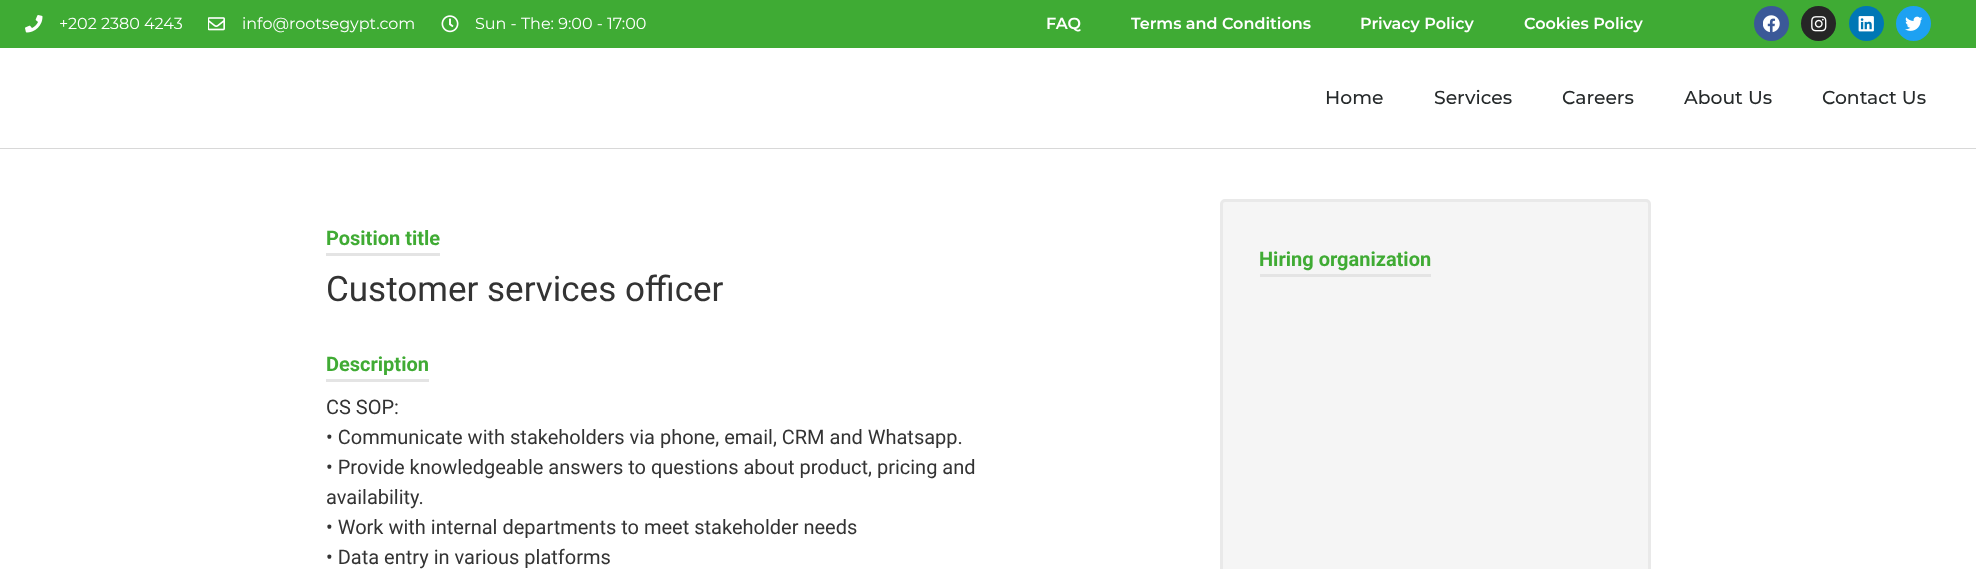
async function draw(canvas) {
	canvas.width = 1976;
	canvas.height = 569;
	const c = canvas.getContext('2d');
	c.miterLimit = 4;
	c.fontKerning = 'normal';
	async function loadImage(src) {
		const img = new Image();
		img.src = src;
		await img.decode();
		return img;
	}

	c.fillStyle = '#fff';
	c.fillRect(0, 0, 1976, 569);
	c.fillStyle = '#3fab34';
	c.fillRect(0, 0, 1976, 48);
	c.drawImage(await loadImage('img1.png'), 25, 15, 18, 18);
	c.font = '16px Montserrat';
	c.fillStyle = '#fff';
	c.fillText('+202 2380 4243', 59, 29);
	c.drawImage(await loadImage('img2.png'), 208, 17, 17, 14);
	c.fillText('info@rootsegypt.com', 242, 29);
	c.drawImage(await loadImage('img3.png'), 441, 15, 18, 18);
	c.fillText('Sun - The: 9:00 - 17:00', 475, 29);
	c.font = '600 16px Montserrat';
	for (const [text, x, y] of [
		['FAQ', 1046, 29],
		['Terms and Conditions', 1131, 29],
		['Privacy Policy', 1360, 29],
		['Cookies Policy', 1524, 29],
	]) {
		c.fillText(text, x, y);
	}
	c.fillStyle = '#3b5998';
	c.beginPath();
	c.arc(1771.5, 23.5, 17.5, 0, 2 * Math.PI);
	c.fill();
	c.drawImage(await loadImage('img4.png'), 1763, 15, 17, 18);
	c.fillStyle = '#262626';
	c.beginPath();
	c.arc(1818.5, 23.5, 17.5, 0, 2 * Math.PI);
	c.fill();
	c.drawImage(await loadImage('img5.png'), 1811, 16, 16, 16);
	c.fillStyle = '#0077b5';
	c.beginPath();
	c.arc(1866.5, 23.5, 17.5, 0, 2 * Math.PI);
	c.fill();
	c.drawImage(await loadImage('img6.png'), 1858, 16, 16, 16);
	c.fillStyle = '#1da1f2';
	c.beginPath();
	c.arc(1913.5, 23.5, 17.5, 0, 2 * Math.PI);
	c.fill();
	c.drawImage(await loadImage('img7.png'), 1905, 16, 18, 15);
	c.fillStyle = '#d8d8d8';
	c.fillRect(0, 148, 1976, 1);
	c.font = '500 18.75px Montserrat';
	c.fillStyle = '#262a2b';
	for (const [text, x, y] of [
		['Home', 1325, 104],
		['Services', 1434, 104],
		['Careers', 1562, 104],
		['About Us', 1684, 104],
		['Contact Us', 1822, 104],
	]) {
		c.fillText(text, x, y);
	}
	c.font = 'bold 20px Roboto';
	c.fillStyle = '#40ab34';
	c.fillText('Position title', 326, 245);
	c.fillStyle = '#e4e4e4';
	c.fillRect(326, 253, 114, 3);
	c.font = '35px Roboto';
	c.fillStyle = '#333';
	c.fillText('Customer services officer', 326, 301);
	c.font = 'bold 20px Roboto';
	c.fillStyle = '#40ab34';
	c.fillText('Description', 326, 371);
	c.fillStyle = '#e4e4e4';
	c.fillRect(326, 379, 103, 3);
	c.font = '20px Roboto';
	c.fillStyle = '#333';
	for (const [text, x, y] of [
		['CS SOP:', 326, 414],
		['• Communicate with stakeholders via phone, email, CRM and Whatsapp.', 326, 444],
		['• Provide knowledgeable answers to questions about product, pricing and', 326, 474],
		['availability.', 326, 504],
		['• Work with internal departments to meet stakeholder needs', 326, 534],
		['• Data entry in various platforms', 326, 564],
	]) {
		c.fillText(text, x, y);
	}
	c.fillStyle = '#f5f5f5';
	c.beginPath();
	c.roundRect(1221.5, 200.5, 428, 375, 3.5);
	c.fill();
	c.strokeStyle = '#e9e9e9';
	c.lineWidth = 3;
	c.stroke();
	c.font = 'bold 20px Roboto';
	c.fillStyle = '#40ab34';
	c.fillText('Hiring organization', 1259, 266);
	c.fillStyle = '#e4e4e4';
	c.fillRect(1260, 274, 171, 3);
}

draw(document.querySelector('canvas'));
